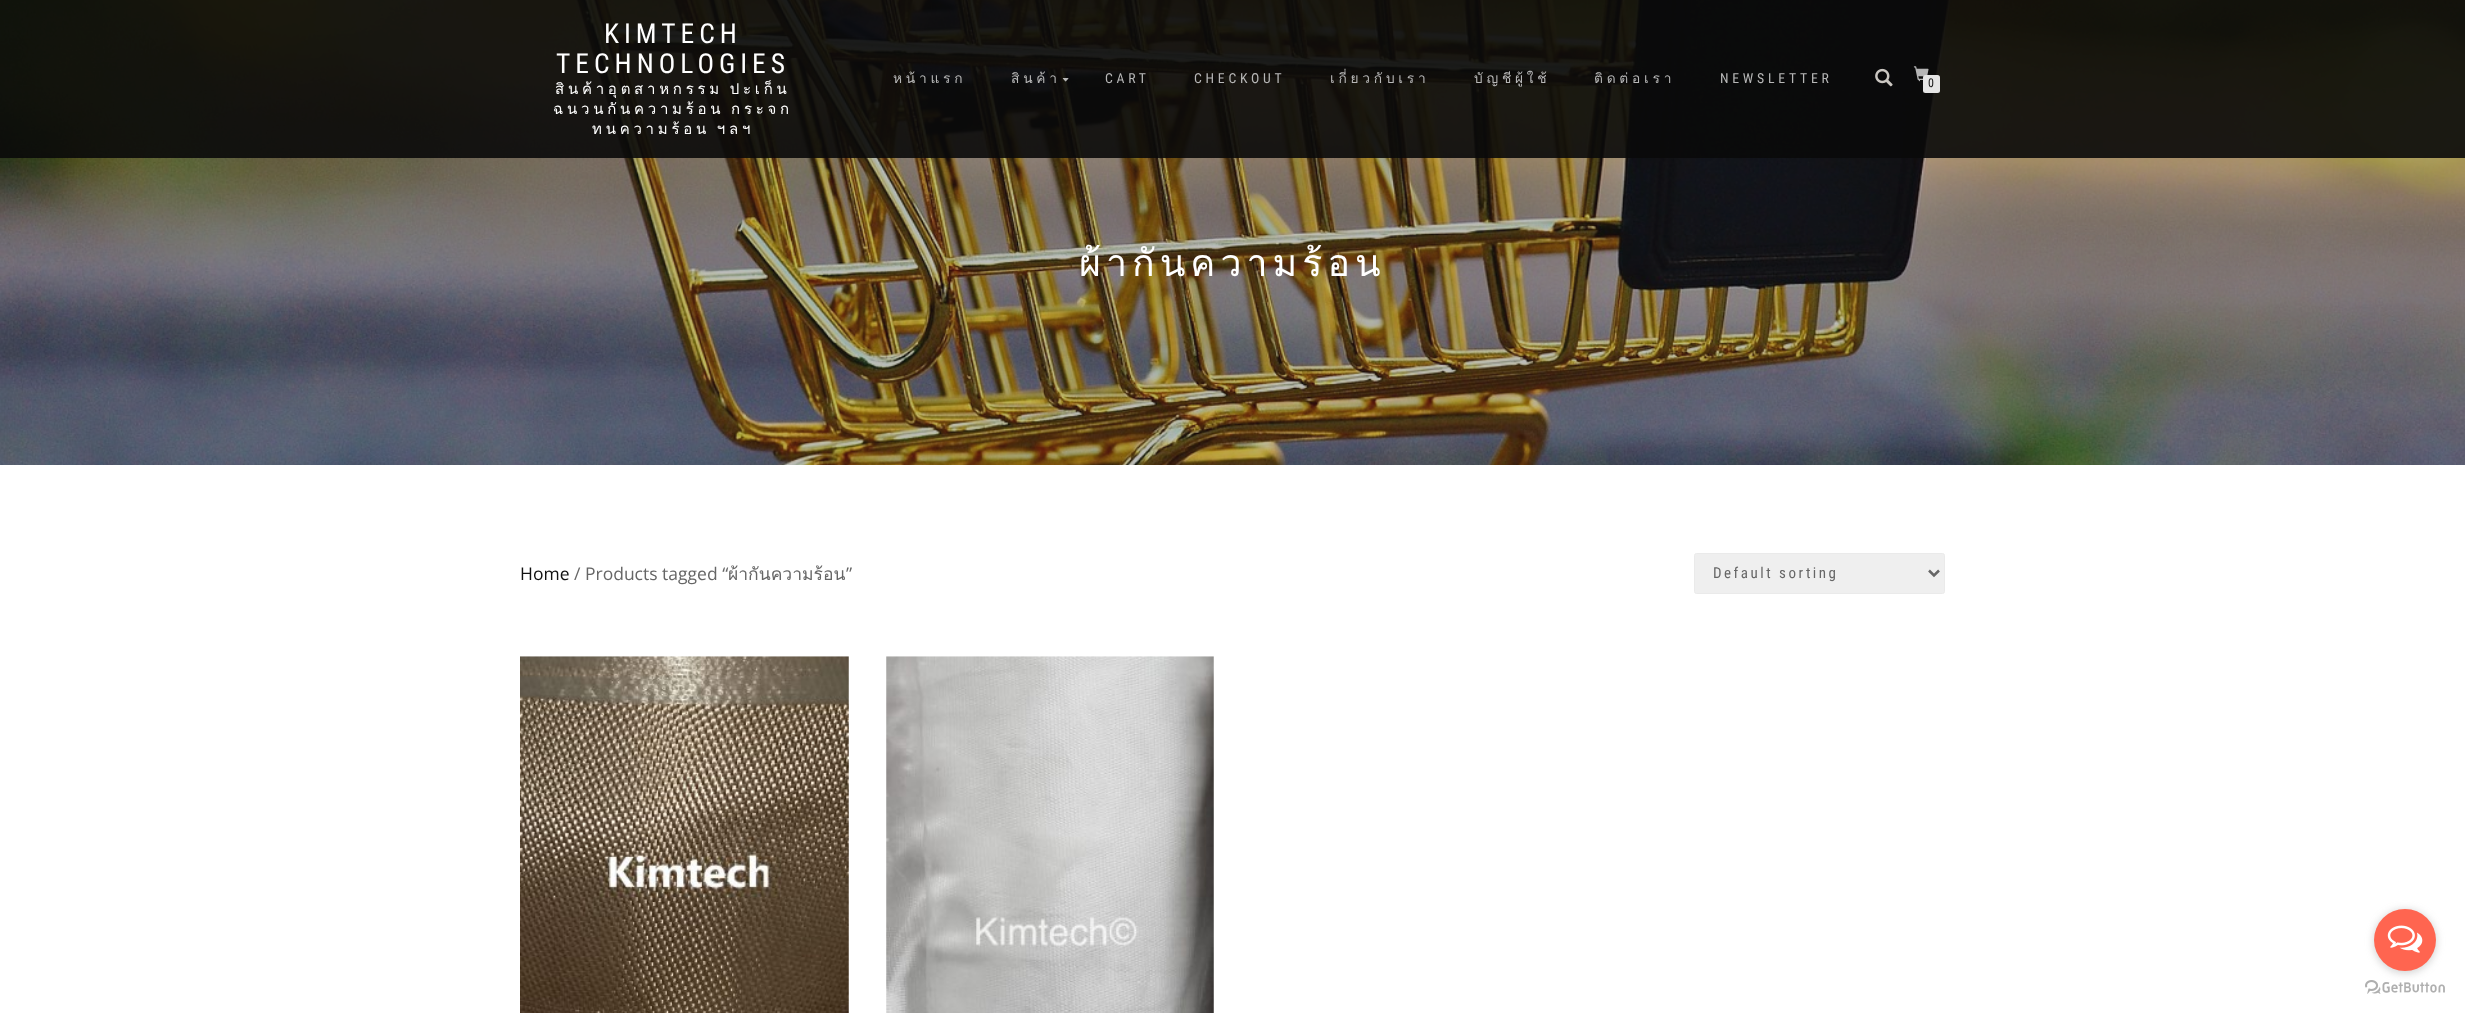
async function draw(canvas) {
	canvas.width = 2465;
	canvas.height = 1013;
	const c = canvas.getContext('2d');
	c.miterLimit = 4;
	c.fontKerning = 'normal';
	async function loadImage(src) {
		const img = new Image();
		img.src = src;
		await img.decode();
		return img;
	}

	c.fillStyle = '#fff';
	c.fillRect(0, 0, 2465, 1013);
	c.drawImage(await loadImage('img4.png'), 0, 0, 2465, 465);
	c.fillStyle = '#0a0a0ae6';
	c.fillRect(0, 0, 2465, 158);
	c.letterSpacing = '5px';
	c.font = '27.5px Roboto Condensed';
	c.fillStyle = '#fff';
	c.fillText('KIMTECH', 604, 43);
	c.fillText('TECHNOLOGIES', 556, 73);
	c.letterSpacing = '3.75px';
	c.wordSpacing = '-2px';
	c.font = '15px Loma';
	for (const [text, x, y] of [
		['สินค้าอุตสาหกรรม ปะเก็น', 555, 94],
		['ฉนวนกันความร้อน กระจก', 553, 114],
		['ทนความร้อน ฯลฯ', 592, 134],
	]) {
		c.fillText(text, x, y);
	}
	c.wordSpacing = '0px';
	c.font = '13.75px Loma';
	c.fillStyle = '#b7b7b7';
	c.fillText('หน้าแรก', 893, 83);
	c.fillText('สินค้า', 1011, 83);
	c.drawImage(await loadImage('img1.png'), 1062, 78, 7, 4);
	c.font = '13.75px Roboto Condensed';
	c.fillText('CART', 1105, 83);
	c.fillText('CHECKOUT', 1194, 83);
	c.font = '13.75px Loma';
	for (const [text, x, y] of [
		['เกี่ยวกับเรา', 1330, 83],
		['บัญชีผู้ใช้', 1474, 83],
		['ติดต่อเรา', 1594, 83],
	]) {
		c.fillText(text, x, y);
	}
	c.font = '13.75px Roboto Condensed';
	c.fillText('NEWSLETTER', 1720, 83);
	c.drawImage(await loadImage('img2.png'), 1875, 68, 18, 19);
	c.drawImage(await loadImage('img3.png'), 1913, 66, 16, 16);
	c.fillStyle = '#e5e5e5';
	c.beginPath();
	c.roundRect(1923, 75, 17, 18, 2.5);
	c.fill();
	c.letterSpacing = '0px';
	c.font = '12px Roboto Condensed';
	c.fillStyle = '#111';
	c.fillText('0', 1928, 87);
	c.letterSpacing = '5px';
	c.font = '37.5px Loma';
	c.fillStyle = '#fff';
	c.fillText('ผ้ากันความร้อน', 1079, 276);
	c.letterSpacing = '0px';
	c.font = '17.5px Open Sans';
	c.fillStyle = '#111';
	c.fillText('Home', 520, 580);
	c.fillStyle = '#666';
	c.fillText('/ Products tagged “', 574, 580);
	c.font = '17.5px Loma';
	c.fillText('ผ้ากันความร้อน', 728, 580);
	c.font = '17.5px Open Sans';
	c.fillText('”', 846, 580);
	c.fillStyle = '#efefef';
	c.beginPath();
	c.roundRect(1694.5, 553.5, 250, 40, 2);
	c.fill();
	c.strokeStyle = '#eaeaea';
	c.stroke();
	c.beginPath();
	c.moveTo(1929, 570.5);
	c.lineTo(1934, 575.5);
	c.lineTo(1939, 570.5);
	c.strokeStyle = '#666';
	c.lineWidth = 2.5;
	c.stroke();
	c.letterSpacing = '2.5px';
	c.font = '15px Roboto Condensed';
	c.fillStyle = '#666';
	c.fillText('Default sorting', 1713, 578);
	c.drawImage(await loadImage('img5.png'), 520, 656, 329, 357);
	c.drawImage(await loadImage('img6.png'), 886, 656, 328, 357);
	c.drawImage(await loadImage('img8.png'), 2365, 980, 80, 14);
	c.fillStyle = '#88888866';
	c.filter = 'blur(4.5px)';
	c.beginPath();
	c.roundRect(2374, 910, 62, 63, 31);
	c.fill();
	c.filter = 'none';
	c.fillStyle = '#ff6550';
	c.beginPath();
	c.arc(2405, 940, 31, 0, 2 * Math.PI);
	c.fill();
	c.drawImage(await loadImage('img7.png'), 2387, 925, 36, 28);
}

draw(document.querySelector('canvas'));
